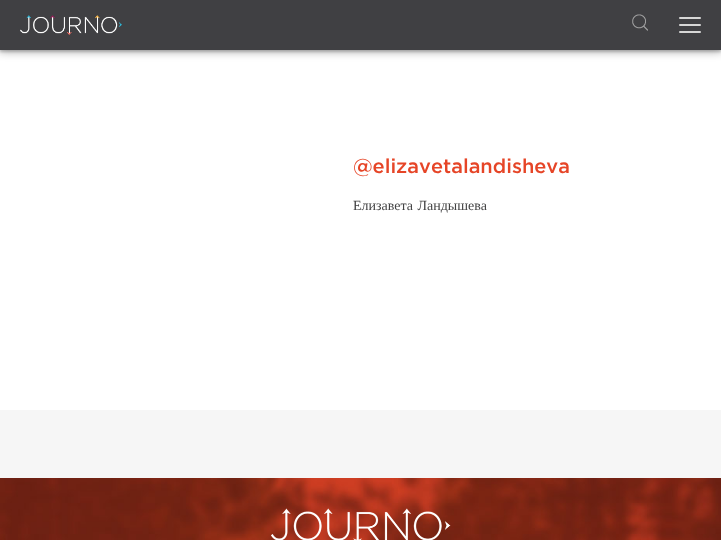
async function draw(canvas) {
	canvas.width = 721;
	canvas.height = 540;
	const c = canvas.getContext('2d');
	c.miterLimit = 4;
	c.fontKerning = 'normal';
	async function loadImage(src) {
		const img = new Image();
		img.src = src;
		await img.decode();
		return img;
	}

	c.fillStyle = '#fff';
	c.fillRect(0, 0, 721, 540);
	c.fillStyle = '#00000026';
	c.filter = 'blur(1px)';
	c.beginPath();
	c.rect(0, 2, 721, 50);
	c.fill();
	c.filter = 'none';
	c.fillStyle = '#00000066';
	c.filter = 'blur(5px)';
	c.beginPath();
	c.rect(-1, -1, 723, 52);
	c.fill();
	c.filter = 'none';
	c.fillStyle = '#404043';
	c.fillRect(0, 0, 721, 50);
	c.drawImage(await loadImage('img1.png'), 20, 15, 102, 20);
	c.drawImage(await loadImage('img2.png'), 632, 14, 16, 17);
	c.fillStyle = '#d7d7d7';
	c.beginPath();
	c.roundRect(679, 17, 22, 2, 1);
	c.fill();
	c.beginPath();
	c.roundRect(679, 24, 22, 2, 1);
	c.fill();
	c.beginPath();
	c.roundRect(679, 31, 22, 2, 1);
	c.fill();
	c.font = '500 20px Gotham';
	c.fillStyle = '#e64527';
	c.fillText('@elizavetalandisheva', 353, 173);
	c.wordSpacing = '1px';
	c.font = '14px Liberation Serif';
	c.fillStyle = '#424243';
	c.fillText('Елизавета Ландышева', 353, 210);
	c.fillStyle = '#f6f6f6';
	c.fillRect(0, 410, 721, 68);
	c.drawImage(await loadImage('img3.png'), 0, 478, 721, 62);
	c.drawImage(await loadImage('img4.png'), 271, 508, 180, 32);
}

draw(document.querySelector('canvas'));
